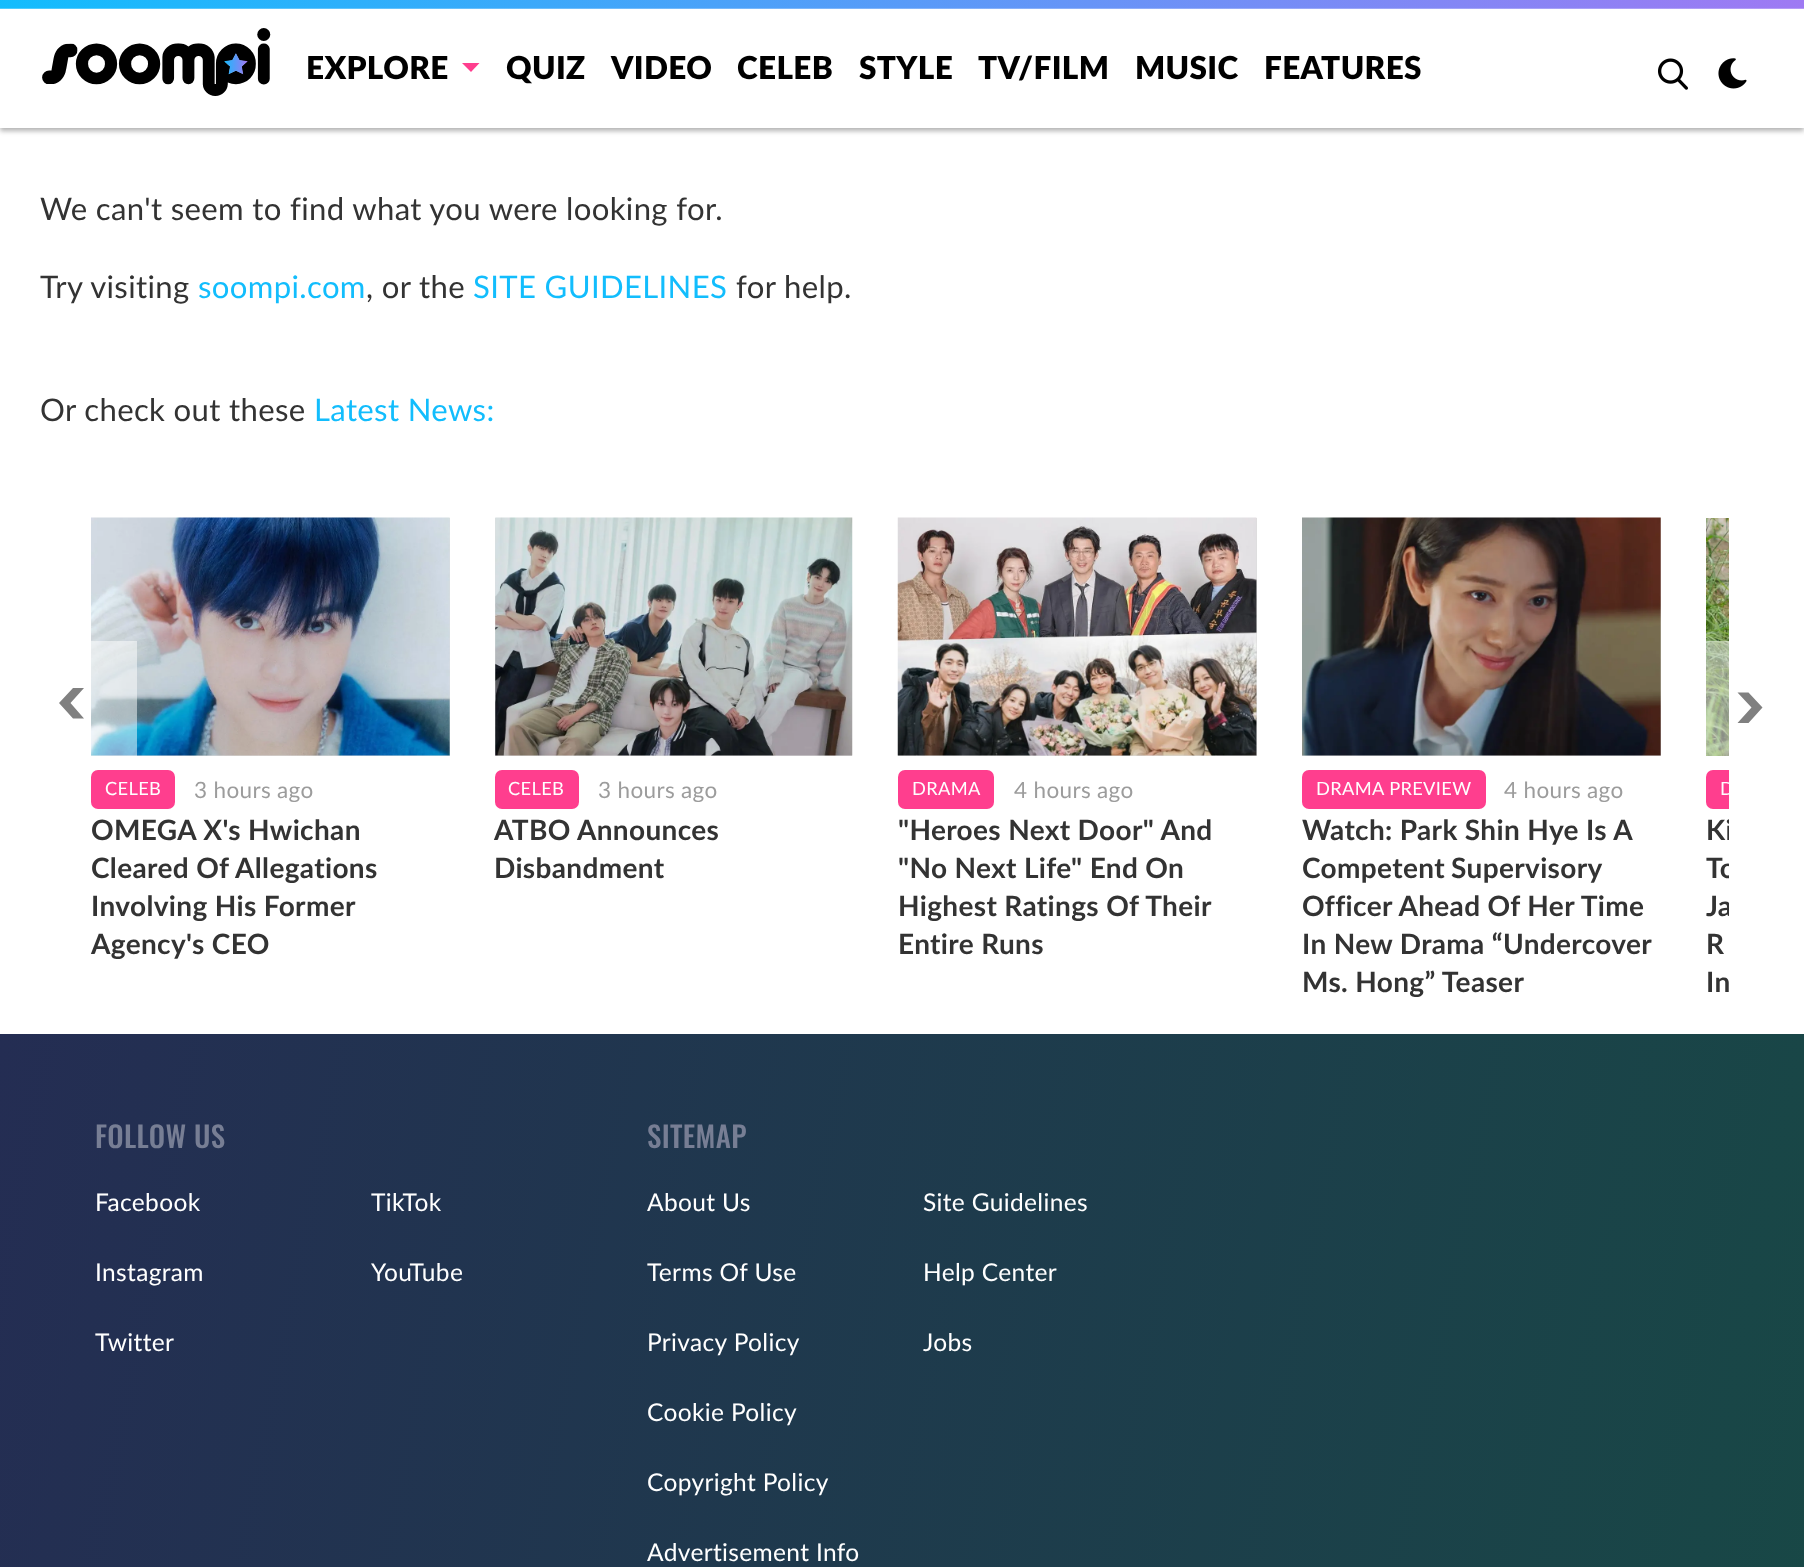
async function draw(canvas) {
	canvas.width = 1804;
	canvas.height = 1567;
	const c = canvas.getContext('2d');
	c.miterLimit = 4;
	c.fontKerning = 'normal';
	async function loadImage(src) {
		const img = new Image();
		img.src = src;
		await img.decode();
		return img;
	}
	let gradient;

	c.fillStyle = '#fff';
	c.fillRect(0, 0, 1804, 1567);
	c.fillStyle = '#0000004d';
	c.filter = 'blur(2.5px)';
	c.beginPath();
	c.rect(0, 4, 1804, 127);
	c.fill();
	c.filter = 'none';
	c.fillStyle = '#fff';
	c.fillRect(0, 8, 1804, 120);
	c.drawImage(await loadImage('img1.png'), 0, 0, 1804, 9);
	c.drawImage(await loadImage('img2.png'), 42, 28, 229, 68);
	c.letterSpacing = '0.35px';
	c.font = '900 31.5px Lato';
	c.fillStyle = '#000';
	c.fillText('EXPLORE', 306, 79);
	c.fillStyle = '#ff3e8e';
	c.beginPath();
	c.moveTo(462, 63);
	c.lineTo(479.5, 63);
	c.lineTo(471, 72);
	c.closePath();
	c.fill();
	c.fillStyle = '#000';
	for (const [text, x, y] of [
		['QUIZ', 506, 79],
		['VIDEO', 611, 79],
		['CELEB', 737, 79],
		['STYLE', 859, 79],
		['TV/FILM', 978, 79],
		['MUSIC', 1135, 79],
		['FEATURES', 1264, 79],
	]) {
		c.fillText(text, x, y);
	}
	c.drawImage(await loadImage('img3.png'), 1658, 58, 30, 32);
	c.drawImage(await loadImage('img4.png'), 1718, 58, 29, 31);
	c.font = '31.1px Lato';
	c.fillStyle = '#333';
	c.fillText('We can\'t seem to find what you were looking for.', 40, 220);
	c.fillText('Try visiting', 40, 298);
	c.fillStyle = '#12bdfd';
	c.fillText('soompi.com', 198, 298);
	c.fillStyle = '#333';
	c.fillText(', or the', 366, 298);
	c.fillStyle = '#12bdfd';
	c.fillText('SITE GUIDELINES', 473, 298);
	c.fillStyle = '#333';
	c.fillText('for help.', 736, 298);
	c.fillText('Or check out these', 40, 421);
	c.fillStyle = '#12bdfd';
	c.fillText('Latest News:', 314, 421);
	c.fillStyle = '#ddd';
	c.fillRect(91, 518, 359, 238);
	c.drawImage(await loadImage('img5.png'), 91, 517, 359, 239);
	c.fillStyle = '#ffffff80';
	c.fillRect(91, 641, 46, 115);
	c.fillStyle = '#808080';
	c.beginPath();
	c.moveTo(59, 703);
	c.lineTo(73, 688);
	c.lineTo(84, 688);
	c.lineTo(70.5, 703);
	c.lineTo(84, 718.5);
	c.lineTo(73, 718.5);
	c.closePath();
	c.fill();
	c.drawImage(await loadImage('img9.png'), 1706, 518, 23, 238);
	c.fillStyle = '#ffffff80';
	c.fillRect(1706, 641, 23, 115);
	c.fillStyle = '#808080';
	c.beginPath();
	c.moveTo(1762.5, 707.5);
	c.lineTo(1748.5, 723);
	c.lineTo(1737.5, 723);
	c.lineTo(1751.5, 707.5);
	c.lineTo(1737.5, 692.5);
	c.lineTo(1748.5, 692.5);
	c.closePath();
	c.fill();
	c.fillStyle = '#ff3e8e';
	c.beginPath();
	c.roundRect(91, 770, 84, 39, 7);
	c.fill();
	c.font = '18.25px Lato';
	c.fillStyle = '#fff';
	c.fillText('CELEB', 105, 795);
	c.font = '22.5px Lato';
	c.fillStyle = '#9c9c9c';
	c.fillText('3 hours ago', 194, 798);
	c.font = 'bold 28px Lato';
	c.fillStyle = '#333';
	for (const [text, x, y] of [
		['OMEGA X\'s Hwichan', 91, 840],
		['Cleared Of Allegations', 91, 878],
		['Involving His Former', 91, 916],
		['Agency\'s CEO', 91, 954],
	]) {
		c.fillText(text, x, y);
	}
	c.fillStyle = '#ddd';
	c.fillRect(495, 518, 357, 238);
	c.drawImage(await loadImage('img6.png'), 495, 517, 358, 239);
	c.fillStyle = '#ff3e8e';
	c.beginPath();
	c.roundRect(495, 770, 84, 39, 7);
	c.fill();
	c.font = '18.25px Lato';
	c.fillStyle = '#fff';
	c.fillText('CELEB', 508, 795);
	c.font = '22.5px Lato';
	c.fillStyle = '#9c9c9c';
	c.fillText('3 hours ago', 598, 798);
	c.font = 'bold 28px Lato';
	c.fillStyle = '#333';
	c.fillText('ATBO Announces', 494, 840);
	c.fillText('Disbandment', 494, 878);
	c.fillStyle = '#ddd';
	c.fillRect(898, 518, 359, 238);
	c.drawImage(await loadImage('img7.png'), 897, 517, 360, 239);
	c.fillStyle = '#ff3e8e';
	c.beginPath();
	c.roundRect(898, 770, 96, 39, 7);
	c.fill();
	c.font = '18.25px Lato';
	c.fillStyle = '#fff';
	c.fillText('DRAMA', 912, 795);
	c.font = '22.5px Lato';
	c.fillStyle = '#9c9c9c';
	c.fillText('4 hours ago', 1014, 798);
	c.font = 'bold 28px Lato';
	c.fillStyle = '#333';
	for (const [text, x, y] of [
		['"Heroes Next Door" And', 898, 840],
		['"No Next Life" End On', 898, 878],
		['Highest Ratings Of Their', 898, 916],
		['Entire Runs', 898, 954],
	]) {
		c.fillText(text, x, y);
	}
	c.fillStyle = '#ddd';
	c.fillRect(1302, 518, 359, 238);
	c.drawImage(await loadImage('img8.png'), 1302, 517, 359, 239);
	c.fillStyle = '#ff3e8e';
	c.beginPath();
	c.roundRect(1302, 770, 184, 39, 7);
	c.fill();
	c.font = '18.25px Lato';
	c.fillStyle = '#fff';
	c.fillText('DRAMA PREVIEW', 1316, 795);
	c.font = '22.5px Lato';
	c.fillStyle = '#9c9c9c';
	c.fillText('4 hours ago', 1504, 798);
	c.font = 'bold 28px Lato';
	c.fillStyle = '#333';
	c.fillText('Watch: Park Shin Hye Is A', 1302, 840);
	c.wordSpacing = '-1px';
	c.fillText('Competent Supervisory', 1302, 878);
	c.wordSpacing = '0px';
	for (const [text, x, y] of [
		['Officer Ahead Of Her Time', 1302, 916],
		['In New Drama “Undercover', 1302, 954],
		['Ms. Hong” Teaser', 1302, 992],
	]) {
		c.fillText(text, x, y);
	}
	c.fillStyle = '#ff3e8e';
	c.beginPath();
	c.roundRect(1706, 770, 23, 39, [7, 0, 0, 7]);
	c.fill();
	c.save();
	c.beginPath();
	c.rect(75, 518, 1654, 488);
	c.clip();
	c.font = '18.25px Lato';
	c.fillStyle = '#fff';
	c.fillText('D', 1720, 795);
	c.font = 'bold 28px Lato';
	c.fillStyle = '#333';
	for (const [text, x, y] of [
		['Ki', 1706, 840],
		['To', 1706, 878],
		['Ja', 1706, 916],
	]) {
		c.fillText(text, x, y);
	}
	c.restore();
	c.fillStyle = '#333';
	c.fillText('R', 1706, 954);
	c.fillText('In', 1706, 992);
	gradient = c.createLinearGradient(-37, 1227, 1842, 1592);
	gradient.addColorStop(0, '#242d53');
	gradient.addColorStop(1, '#184846');
	c.fillStyle = gradient;
	c.fillRect(0, 1034, 1804, 533);
	c.font = '500 29px Oswald';
	c.fillStyle = '#777e94';
	c.fillText('FOLLOW US', 95, 1148);
	c.font = '24.5px Lato';
	c.fillStyle = '#fff';
	for (const [text, x, y] of [
		['Facebook', 95, 1211],
		['TikTok', 371, 1211],
		['Instagram', 95, 1281],
		['YouTube', 371, 1281],
		['Twitter', 95, 1351],
	]) {
		c.fillText(text, x, y);
	}
	c.font = '500 29px Oswald';
	c.fillStyle = '#777e94';
	c.fillText('SITEMAP', 647, 1148);
	c.font = '24.5px Lato';
	c.fillStyle = '#fff';
	for (const [text, x, y] of [
		['About Us', 647, 1211],
		['Site Guidelines', 923, 1211],
		['Terms Of Use', 647, 1281],
		['Help Center', 923, 1281],
		['Privacy Policy', 647, 1351],
		['Jobs', 923, 1351],
		['Cookie Policy', 647, 1421],
		['Copyright Policy', 647, 1491],
		['Advertisement Info', 647, 1561],
	]) {
		c.fillText(text, x, y);
	}
}

draw(document.querySelector('canvas'));
